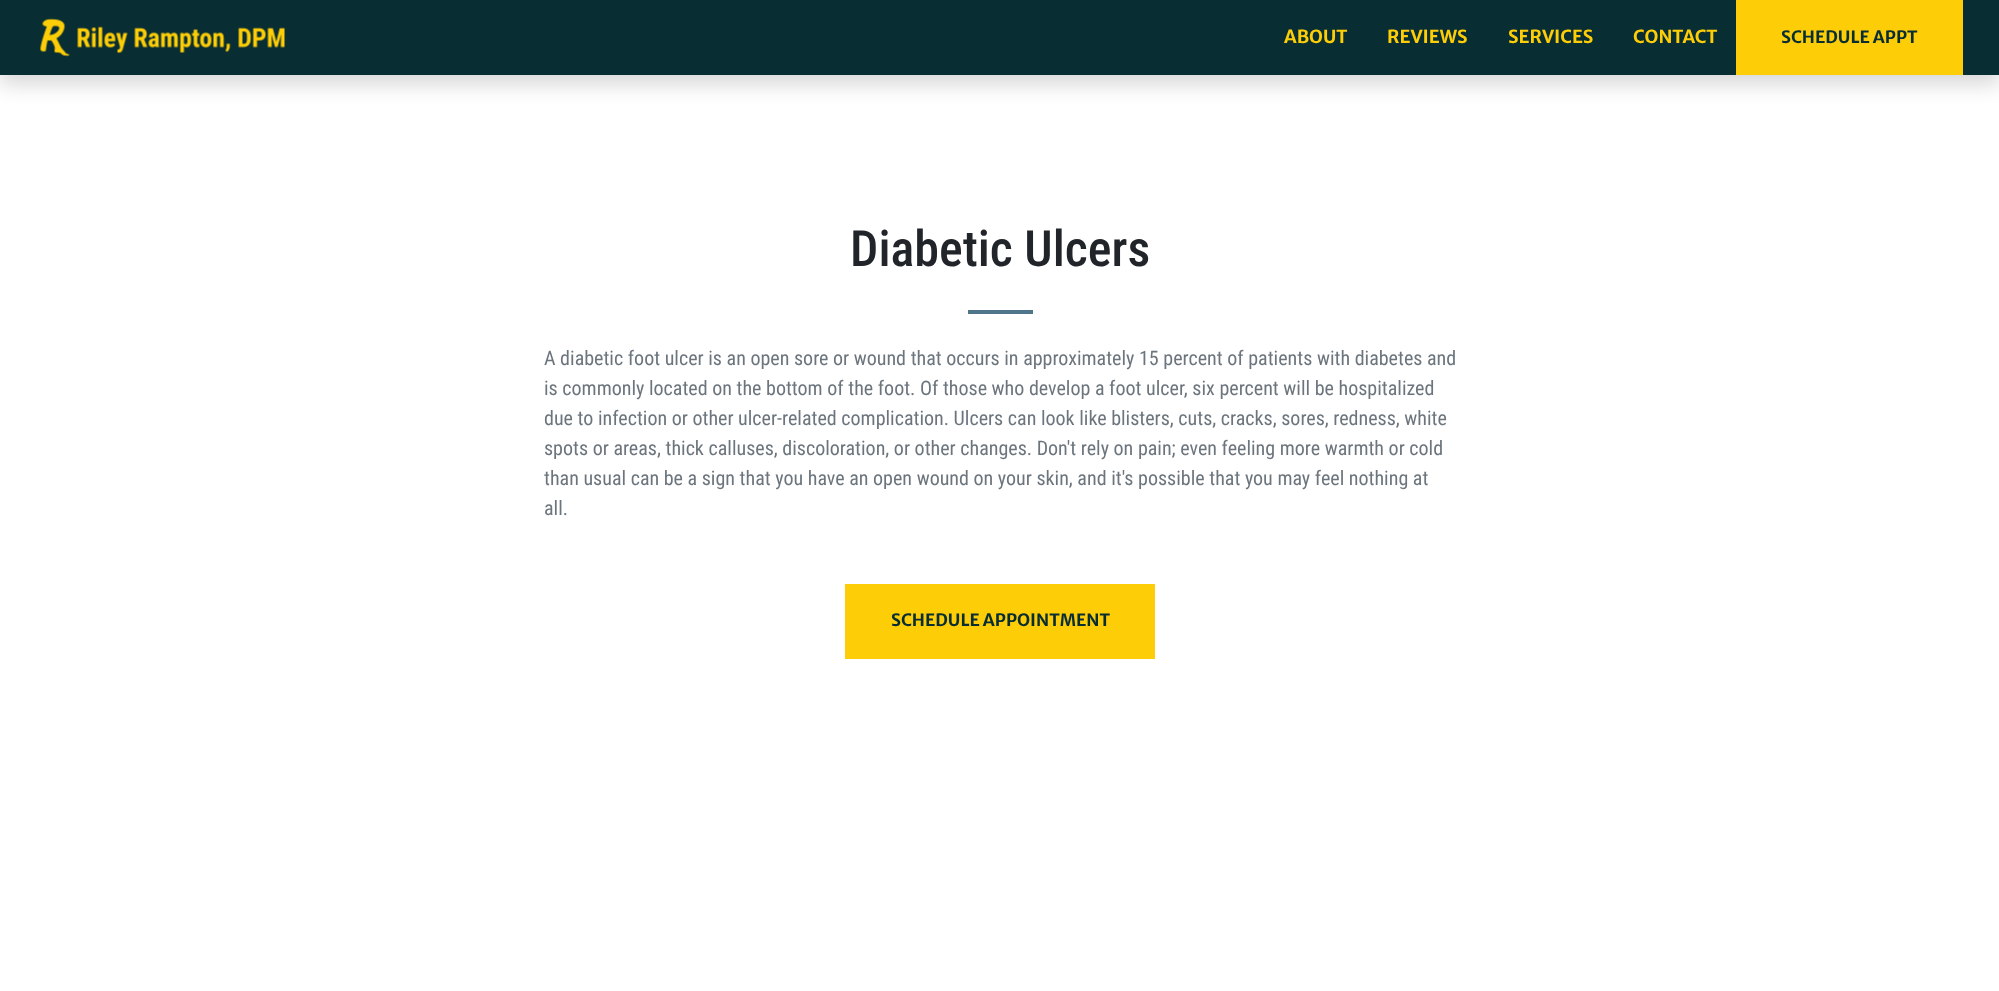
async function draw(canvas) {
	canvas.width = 1999;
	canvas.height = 991;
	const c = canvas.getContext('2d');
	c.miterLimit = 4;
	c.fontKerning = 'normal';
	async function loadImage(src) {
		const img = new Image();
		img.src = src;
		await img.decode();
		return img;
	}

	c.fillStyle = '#fff';
	c.fillRect(0, 0, 1999, 991);
	c.fillStyle = '#00000026';
	c.filter = 'blur(10px)';
	c.beginPath();
	c.rect(0, 10, 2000, 75);
	c.fill();
	c.filter = 'none';
	c.fillStyle = '#082d33';
	c.fillRect(0, 0, 1999, 75);
	c.drawImage(await loadImage('img1.png'), 40, 18, 245, 39);
	c.font = 'bold 18px Merriweather Sans';
	c.fillStyle = '#fdcd07';
	for (const [text, x, y] of [
		['ABOUT', 1284, 43],
		['REVIEWS', 1387, 43],
		['SERVICES', 1508, 43],
		['CONTACT', 1633, 43],
	]) {
		c.fillText(text, x, y);
	}
	c.fillRect(1736, 0, 227, 75);
	c.font = 'bold 17px Merriweather Sans';
	c.fillStyle = '#082d33';
	c.fillText('SCHEDULE APPT', 1781, 43);
	c.font = '500 50px Roboto Condensed';
	c.fillStyle = '#212529';
	c.fillText('Diabetic Ulcers', 850, 266);
	c.fillStyle = '#4f758b';
	c.fillRect(968, 310, 65, 4);
	c.font = '20px Roboto Condensed';
	c.fillStyle = '#6c757d';
	for (const [text, x, y] of [
		['A diabetic foot ulcer is an open sore or wound that occurs in approximately 15 percent of patients with diabetes and', 544, 365],
		['is commonly located on the bottom of the foot. Of those who develop a foot ulcer, six percent will be hospitalized', 544, 395],
		['due to infection or other ulcer-related complication. Ulcers can look like blisters, cuts, cracks, sores, redness, white', 544, 425],
		['spots or areas, thick calluses, discoloration, or other changes. Don\'t rely on pain; even feeling more warmth or cold', 544, 455],
		['than usual can be a sign that you have an open wound on your skin, and it\'s possible that you may feel nothing at', 544, 485],
		['all.', 544, 515],
	]) {
		c.fillText(text, x, y);
	}
	c.fillStyle = '#fdcd07';
	c.fillRect(845, 584, 310, 75);
	c.font = 'bold 17px Merriweather Sans';
	c.fillStyle = '#082d33';
	c.fillText('SCHEDULE APPOINTMENT', 891, 626);
}

draw(document.querySelector('canvas'));
